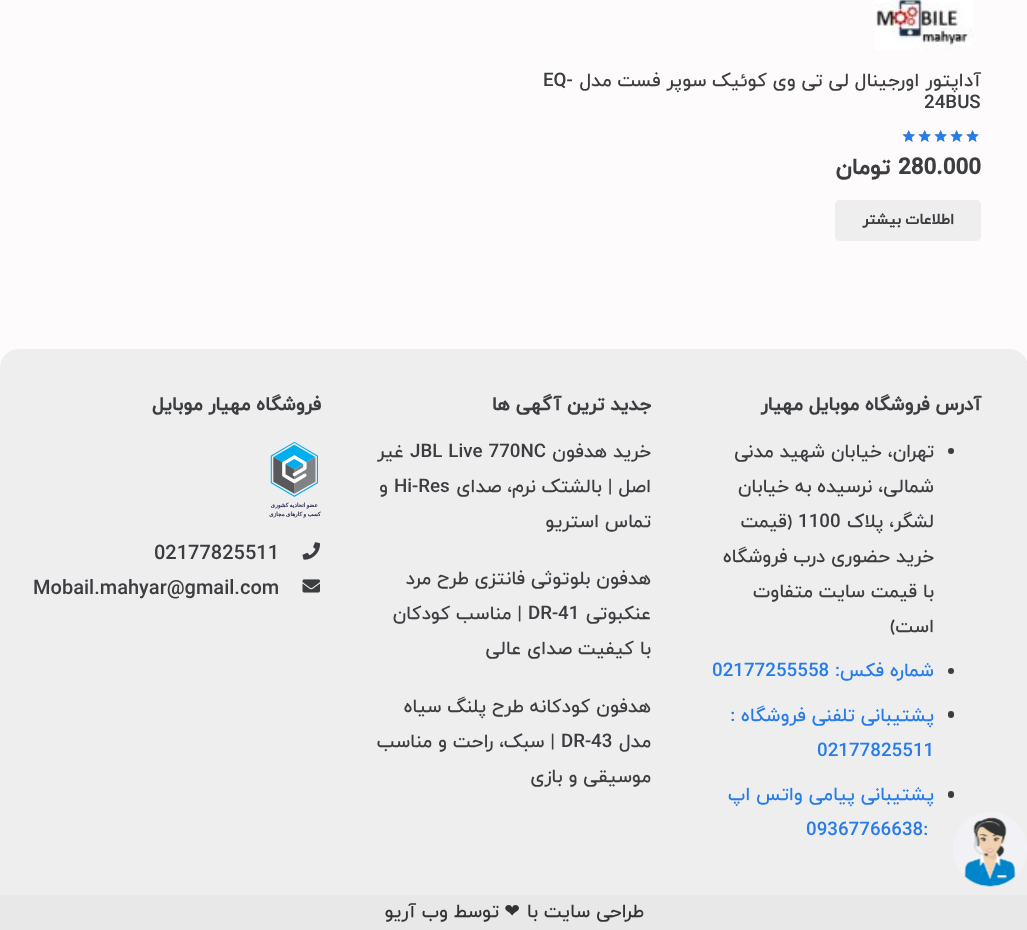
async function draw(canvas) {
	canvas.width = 1027;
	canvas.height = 930;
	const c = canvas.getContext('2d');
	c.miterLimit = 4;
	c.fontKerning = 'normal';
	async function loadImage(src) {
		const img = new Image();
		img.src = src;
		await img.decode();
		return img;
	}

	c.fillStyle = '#fdfbfb';
	c.fillRect(0, 0, 1027, 930);
	c.drawImage(await loadImage('img1.png'), 875, 0, 99, 50);
	c.direction = 'rtl';
	c.font = '500 18.75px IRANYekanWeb';
	c.fillStyle = '#3b3d40';
	c.fillText('آداپتور اورجینال لی تی وی کوئیک سوپر فست مدل', 981, 86);
	c.direction = 'ltr';
	c.fillText('EQ-', 543, 86);
	c.fillText('24BUS', 924, 108);
	c.drawImage(await loadImage('img2.png'), 902, 130, 77, 12);
	c.drawImage(await loadImage('img3.png'), 902, 130, 77, 12);
	c.font = 'bold 22.5px IRANYekanWeb';
	c.fillText('280.000', 898, 174);
	c.direction = 'rtl';
	c.fillText('تومان', 890, 174);
	c.fillStyle = '#eee';
	c.beginPath();
	c.roundRect(835, 200, 146, 41, 5);
	c.fill();
	c.font = 'bold 15px IRANYekanWeb';
	c.fillStyle = '#3b3d40';
	c.fillText('اطلاعات بیشتر', 954, 224);
	c.fillStyle = '#eee';
	c.beginPath();
	c.moveTo(19, 349);
	c.lineTo(1009, 349);
	c.bezierCurveTo(1019.5, 349, 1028, 357.5, 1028, 368);
	c.lineTo(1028, 895);
	c.lineTo(0, 895);
	c.lineTo(0, 368);
	c.bezierCurveTo(0, 357.5, 8.5, 349, 19, 349);
	c.closePath();
	c.fill();
	c.drawImage(await loadImage('img4.png'), 953, 811, 74, 76);
	c.font = 'bold 18.75px IRANYekanWeb';
	c.fillStyle = '#3b3d40';
	c.fillText('آدرس فروشگاه موبایل مهیار', 981, 410);
	c.beginPath();
	c.arc(951, 451, 3, 0, 2 * Math.PI);
	c.fill();
	c.font = '500 18.75px IRANYekanWeb';
	for (const [text, x, y] of [
		['تهران، خیابان شهید مدنی', 934, 457],
		['شمالی، نرسیده به خیابان', 934, 492],
		['لشگر، پلاک', 934, 527],
	]) {
		c.fillText(text, x, y);
	}
	c.direction = 'ltr';
	c.fillText('1100', 798, 527);
	c.direction = 'rtl';
	for (const [text, x, y] of [
		['(قیمت', 792, 527],
		['خرید حضوری درب فروشگاه', 934, 562],
		['با قیمت سایت متفاوت', 934, 597],
		['است)', 934, 632],
	]) {
		c.fillText(text, x, y);
	}
	c.beginPath();
	c.arc(951, 671, 3, 0, 2 * Math.PI);
	c.fill();
	c.fillStyle = '#277cea';
	c.fillText('شماره فکس:', 934, 676);
	c.direction = 'ltr';
	c.fillText('02177255558', 712, 676);
	c.fillStyle = '#3b3d40';
	c.beginPath();
	c.roundRect(948, 711, 6, 7, 3);
	c.fill();
	c.direction = 'rtl';
	c.fillStyle = '#277cea';
	c.fillText('پشتیبانی تلفنی فروشگاه :', 934, 721);
	c.direction = 'ltr';
	c.fillText('02177825511', 817, 756);
	c.fillStyle = '#3b3d40';
	c.beginPath();
	c.roundRect(948, 791, 6, 7, 3);
	c.fill();
	c.direction = 'rtl';
	c.fillStyle = '#277cea';
	c.fillText('پشتیبانی پیامی واتس اپ', 934, 800);
	c.direction = 'ltr';
	c.fillText('09367766638:', 806, 835);
	c.direction = 'rtl';
	c.font = 'bold 18.75px IRANYekanWeb';
	c.fillStyle = '#3b3d40';
	c.fillText('جدید ترین آگهی ها', 651, 410);
	c.font = '500 18.75px IRANYekanWeb';
	c.fillText('خرید هدفون', 651, 457);
	c.direction = 'ltr';
	c.fillText('JBL Live 770NC', 410, 457);
	c.direction = 'rtl';
	c.fillText('غیر', 404, 457);
	c.fillText('اصل | بالشتک نرم، صدای', 651, 492);
	c.direction = 'ltr';
	c.fillText('Hi-Res', 394, 492);
	c.direction = 'rtl';
	for (const [text, x, y] of [
		['و', 388, 492],
		['تماس استریو', 651, 527],
		['هدفون بلوتوثی فانتزی طرح مرد', 651, 584],
		['عنکبوتی', 651, 619],
	]) {
		c.fillText(text, x, y);
	}
	c.direction = 'ltr';
	c.fillText('DR-41', 528, 619);
	c.direction = 'rtl';
	for (const [text, x, y] of [
		['| مناسب کودکان', 522, 619],
		['با کیفیت صدای عالی', 651, 654],
		['هدفون کودکانه طرح پلنگ سیاه', 651, 712],
		['مدل', 651, 747],
	]) {
		c.fillText(text, x, y);
	}
	c.direction = 'ltr';
	c.fillText('DR-43', 561, 747);
	c.direction = 'rtl';
	c.fillText('| سبک، راحت و مناسب', 555, 747);
	c.fillText('موسیقی و بازی', 651, 782);
	c.font = 'bold 18.75px IRANYekanWeb';
	c.fillText('فروشگاه مهیار موبایل', 321, 410);
	c.drawImage(await loadImage('img5.png'), 269, 441, 52, 77);
	c.drawImage(await loadImage('img6.png'), 302, 542, 18, 18);
	c.direction = 'ltr';
	c.font = '500 20px IRANYekanWeb';
	c.fillText('02177825511', 154, 559);
	c.drawImage(await loadImage('img7.png'), 302, 579, 18, 14);
	c.fillText('Mobail.mahyar@gmail.com', 33, 594);
	c.fillStyle = '#e8e8e8';
	c.fillRect(0, 895, 1027, 35);
	c.direction = 'rtl';
	c.font = '500 18.75px IRANYekanWeb';
	c.fillStyle = '#333';
	c.fillText('طراحی سایت با', 644, 917);
	c.font = '18.75px DejaVu Sans';
	c.fillText('❤', 520, 917);
	c.font = '500 18.75px IRANYekanWeb';
	c.fillText('توسط', 499, 917);
	c.fillText('وب آریو', 448, 917);
}

draw(document.querySelector('canvas'));
